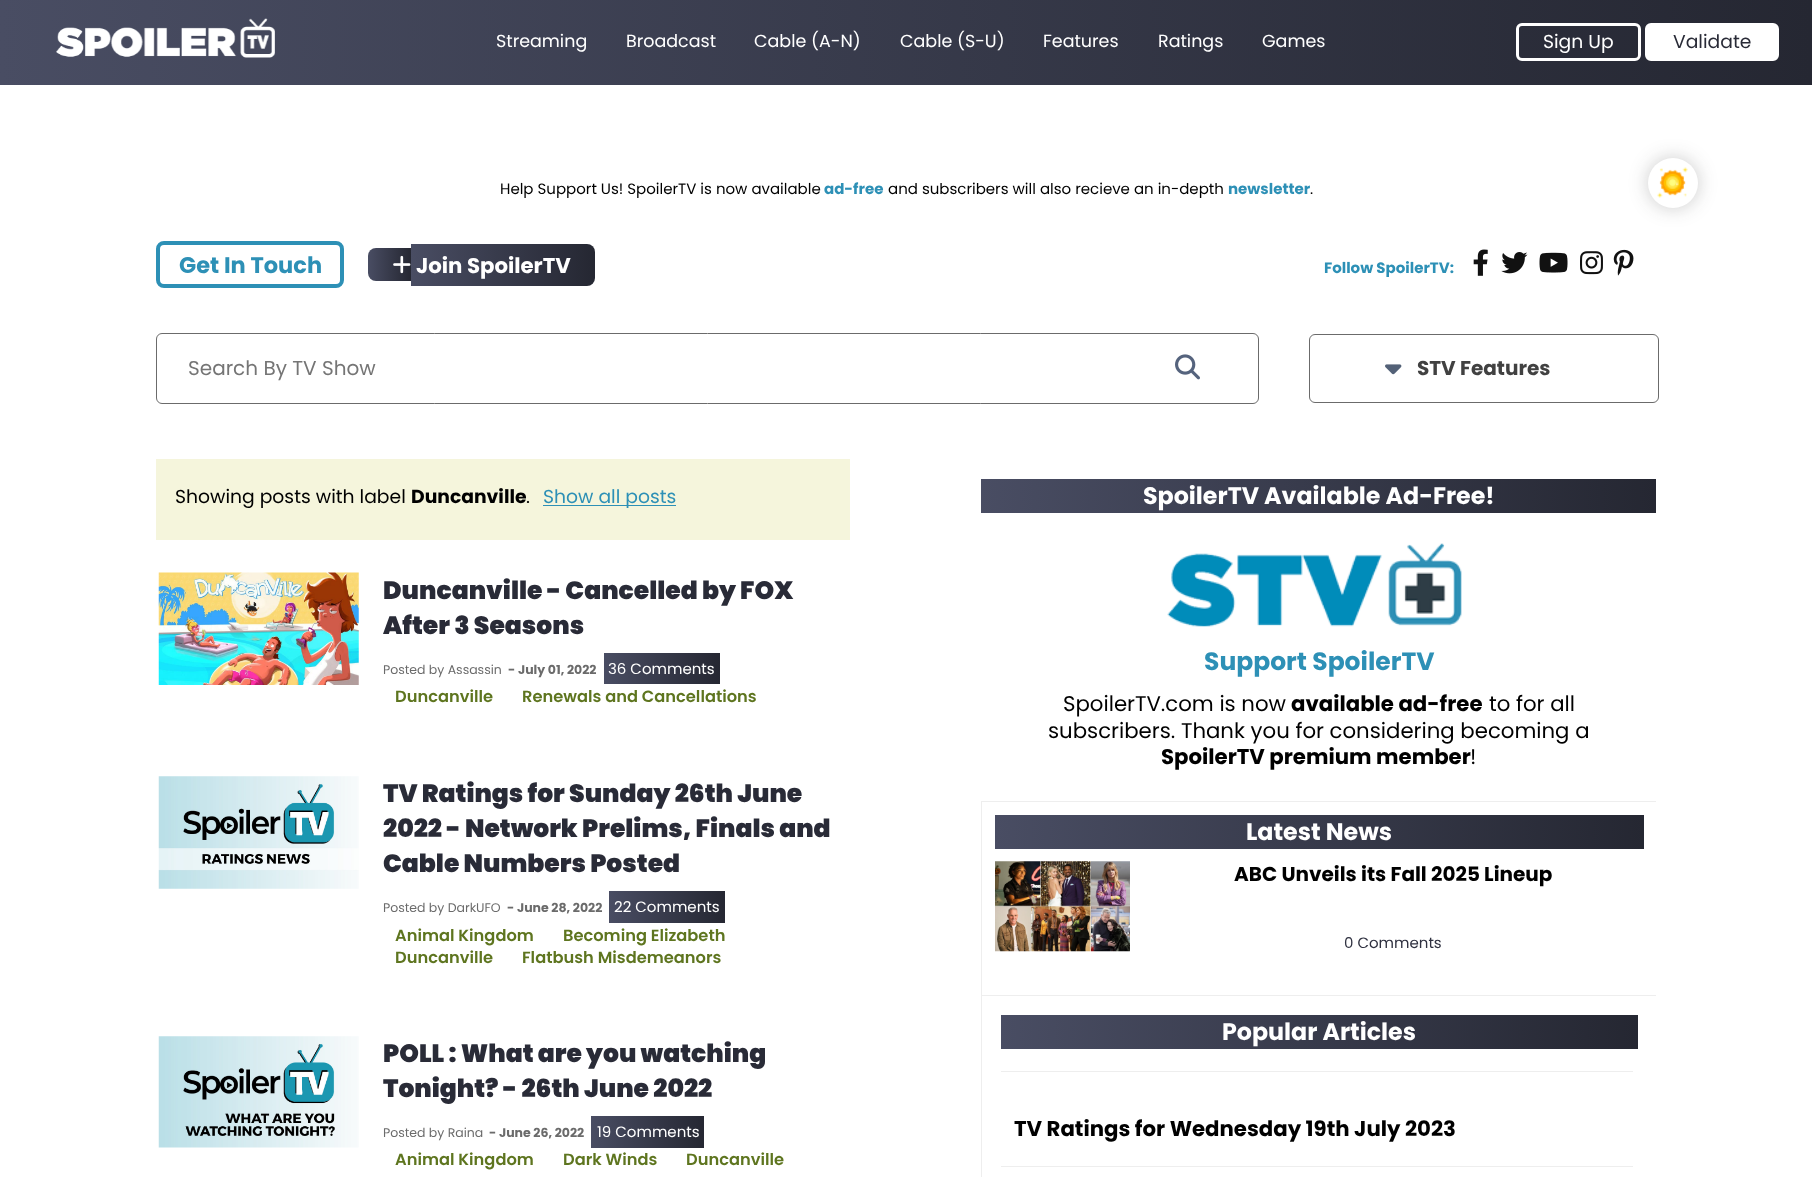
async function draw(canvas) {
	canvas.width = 1812;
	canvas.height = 1177;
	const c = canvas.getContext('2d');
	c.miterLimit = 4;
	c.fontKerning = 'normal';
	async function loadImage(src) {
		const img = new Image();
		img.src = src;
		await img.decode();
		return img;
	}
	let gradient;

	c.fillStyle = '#fff';
	c.fillRect(0, 0, 1812, 1177);
	gradient = c.createLinearGradient(0, 41, 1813, 41);
	gradient.addColorStop(0, '#494d63');
	gradient.addColorStop(1, '#252732');
	c.fillStyle = gradient;
	c.fillRect(0, 0, 1812, 85);
	c.drawImage(await loadImage('img1.png'), 56, 18, 219, 40);
	c.font = '17.5px Poppins';
	c.fillStyle = '#fff';
	for (const [text, x, y] of [
		['Streaming', 496, 47],
		['Broadcast', 626, 47],
		['Cable (A-N)', 754, 47],
		['Cable (S-U)', 900, 47],
		['Features', 1043, 47],
		['Ratings', 1158, 47],
		['Games', 1262, 47],
	]) {
		c.fillText(text, x, y);
	}
	c.beginPath();
	c.roundRect(1517.5, 24.5, 122, 35, 4.5);
	c.strokeStyle = '#fff';
	c.lineWidth = 3;
	c.stroke();
	c.font = '18.75px Poppins';
	c.fillText('Sign Up', 1543, 48);
	c.beginPath();
	c.roundRect(1646.5, 24.5, 131, 35, 4.5);
	c.fill();
	c.stroke();
	c.fillStyle = '#292b37';
	c.fillText('Validate', 1673, 48);
	c.font = '15px Poppins';
	c.fillStyle = '#000';
	c.fillText('Help Support Us! SpoilerTV is now available', 500, 194);
	c.font = 'bold 15px Poppins';
	c.fillStyle = '#2d90b6';
	c.fillText('ad-free', 824, 194);
	c.font = '15px Poppins';
	c.fillStyle = '#000';
	c.fillText('and subscribers will also recieve an in-depth', 888, 194);
	c.font = 'bold 15px Poppins';
	c.fillStyle = '#2d90b6';
	c.fillText('newsletter', 1228, 194);
	c.font = '15px Poppins';
	c.fillStyle = '#000';
	c.fillText('.', 1310, 194);
	c.fillStyle = '#2020203d';
	c.filter = 'blur(9.5px)';
	c.beginPath();
	c.roundRect(1648, 158, 50, 50, 25);
	c.fill();
	c.filter = 'none';
	c.fillStyle = '#fff';
	c.beginPath();
	c.arc(1673, 183, 25, 0, 2 * Math.PI);
	c.fill();
	c.drawImage(await loadImage('img2.png'), 1657, 167, 31, 31);
	c.beginPath();
	c.roundRect(158, 243, 184, 43, 6);
	c.strokeStyle = '#2d90b6';
	c.lineWidth = 4;
	c.stroke();
	c.font = 'bold 22.5px Poppins';
	c.fillStyle = '#2d90b6';
	c.fillText('Get In Touch', 179, 273);
	gradient = c.createLinearGradient(368, 264, 411, 264);
	gradient.addColorStop(0, '#494d63');
	gradient.addColorStop(1, '#252732');
	c.fillStyle = gradient;
	c.beginPath();
	c.roundRect(368, 248, 43, 33, [8, 0, 0, 8]);
	c.fill();
	gradient = c.createLinearGradient(411, 265, 595, 265);
	gradient.addColorStop(0, '#494d63');
	gradient.addColorStop(1, '#252732');
	c.fillStyle = gradient;
	c.beginPath();
	c.roundRect(411, 244, 184, 42, [0, 8, 8, 0]);
	c.fill();
	c.drawImage(await loadImage('img3.png'), 393, 255, 18, 19);
	c.font = 'bold 21.25px Poppins';
	c.fillStyle = '#fff';
	c.fillText('Join SpoilerTV', 416, 273);
	c.font = 'bold 15px Poppins';
	c.fillStyle = '#2d90b6';
	c.fillText('Follow SpoilerTV:', 1324, 273);
	c.drawImage(await loadImage('img4.png'), 1473, 249, 15, 27);
	c.drawImage(await loadImage('img5.png'), 1501, 252, 27, 22);
	c.drawImage(await loadImage('img6.png'), 1539, 252, 29, 21);
	c.drawImage(await loadImage('img7.png'), 1580, 251, 23, 24);
	c.drawImage(await loadImage('img8.png'), 1613, 249, 21, 27);
	c.beginPath();
	c.roundRect(156.5, 333.5, 1102, 70, 5.5);
	c.strokeStyle = '#6b6b6b';
	c.lineWidth = 1;
	c.stroke();
	c.font = '20px Poppins';
	c.fillStyle = '#757575';
	c.fillText('Search By TV Show', 188, 375);
	c.drawImage(await loadImage('img9.png'), 1175, 354, 25, 26);
	c.beginPath();
	c.roundRect(1309.5, 334.5, 349, 68, 5.5);
	c.stroke();
	c.drawImage(await loadImage('img10.png'), 1385, 364, 17, 11);
	c.font = 'bold 20px Poppins';
	c.fillStyle = '#414141';
	c.fillText('STV Features', 1417, 375);
	c.fillStyle = '#f5f5dc';
	c.fillRect(156, 459, 694, 81);
	c.font = '18.75px Poppins';
	c.fillStyle = '#000';
	c.fillText('Showing posts with label', 175, 503);
	c.font = 'bold 18.75px Poppins';
	c.fillText('Duncanville', 411, 503);
	c.font = '18.75px Poppins';
	c.fillText('.', 526, 503);
	c.fillStyle = '#2d90b6';
	c.fillRect(543, 505, 133, 1);
	c.fillText('Show all posts', 543, 503);
	c.drawImage(await loadImage('img11.png'), 158, 572, 201, 113);
	c.font = '900 25px Poppins';
	c.fillStyle = '#292b37';
	c.fillText('Duncanville - Cancelled by FOX', 383, 599);
	c.fillText('After 3 Seasons', 383, 634);
	c.font = '12.5px Poppins';
	c.fillStyle = '#6b6b6b';
	c.fillText('Posted by Assassin', 383, 674);
	c.font = 'bold 12.5px Poppins';
	c.fillText('- July 01, 2022', 508, 674);
	gradient = c.createLinearGradient(604, 668, 720, 668);
	gradient.addColorStop(0, '#494d63');
	gradient.addColorStop(1, '#252732');
	c.fillStyle = gradient;
	c.fillRect(604, 653, 116, 31);
	c.font = '15px Poppins';
	c.fillStyle = '#fff';
	c.fillText('36 Comments', 608, 674);
	c.font = '600 16.25px Poppins';
	c.fillStyle = '#5e751f';
	c.fillText('Duncanville', 395, 702);
	c.fillText('Renewals and Cancellations', 522, 702);
	c.drawImage(await loadImage('img12.png'), 158, 776, 201, 113);
	c.font = '900 25px Poppins';
	c.fillStyle = '#292b37';
	for (const [text, x, y] of [
		['TV Ratings for Sunday 26th June', 383, 802],
		['2022 - Network Prelims, Finals and', 383, 837],
		['Cable Numbers Posted', 383, 872],
	]) {
		c.fillText(text, x, y);
	}
	c.font = '12.5px Poppins';
	c.fillStyle = '#6b6b6b';
	c.fillText('Posted by DarkUFO', 383, 912);
	c.font = 'bold 12.5px Poppins';
	c.fillText('- June 28, 2022', 507, 912);
	gradient = c.createLinearGradient(609, 907, 725, 907);
	gradient.addColorStop(0, '#494d63');
	gradient.addColorStop(1, '#252732');
	c.fillStyle = gradient;
	c.fillRect(609, 891, 116, 32);
	c.font = '15px Poppins';
	c.fillStyle = '#fff';
	c.fillText('22 Comments', 614, 912);
	c.font = '600 16.25px Poppins';
	c.fillStyle = '#5e751f';
	for (const [text, x, y] of [
		['Animal Kingdom', 395, 941],
		['Becoming Elizabeth', 563, 941],
		['Duncanville', 395, 963],
		['Flatbush Misdemeanors', 522, 963],
	]) {
		c.fillText(text, x, y);
	}
	c.drawImage(await loadImage('img13.png'), 158, 1036, 201, 112);
	c.font = '900 25px Poppins';
	c.fillStyle = '#292b37';
	c.fillText('POLL : What are you watching', 383, 1062);
	c.fillText('Tonight? - 26th June 2022', 383, 1097);
	c.font = '12.5px Poppins';
	c.fillStyle = '#6b6b6b';
	c.fillText('Posted by Raina', 383, 1137);
	c.font = 'bold 12.5px Poppins';
	c.fillText('- June 26, 2022', 489, 1137);
	gradient = c.createLinearGradient(591, 1132, 704, 1132);
	gradient.addColorStop(0, '#494d63');
	gradient.addColorStop(1, '#252732');
	c.fillStyle = gradient;
	c.fillRect(591, 1116, 113, 32);
	c.font = '15px Poppins';
	c.fillStyle = '#fff';
	c.fillText('19 Comments', 597, 1137);
	c.font = '600 16.25px Poppins';
	c.fillStyle = '#5e751f';
	for (const [text, x, y] of [
		['Animal Kingdom', 395, 1165],
		['Dark Winds', 563, 1165],
		['Duncanville', 686, 1165],
	]) {
		c.fillText(text, x, y);
	}
	gradient = c.createLinearGradient(981, 496, 1656, 496);
	gradient.addColorStop(0, '#494d63');
	gradient.addColorStop(1, '#252732');
	c.fillStyle = gradient;
	c.fillRect(981, 479, 675, 34);
	c.font = 'bold 23.75px Poppins';
	c.fillStyle = '#fff';
	c.fillText('SpoilerTV Available Ad-Free!', 1143, 504);
	c.drawImage(await loadImage('img14.png'), 1167, 543, 295, 84);
	c.font = 'bold 25px Poppins';
	c.fillStyle = '#2d90b6';
	c.fillText('Support SpoilerTV', 1204, 670);
	c.font = '21.25px Poppins';
	c.fillStyle = '#000';
	c.fillText('SpoilerTV.com is now', 1063, 711);
	c.font = 'bold 21.25px Poppins';
	c.fillText('available ad-free', 1291, 711);
	c.font = '21.25px Poppins';
	c.fillText('to for all', 1489, 711);
	c.fillText('subscribers. Thank you for considering becoming a', 1048, 738);
	c.font = 'bold 21.25px Poppins';
	c.fillText('SpoilerTV premium member', 1161, 764);
	c.font = '21.25px Poppins';
	c.fillText('!', 1470, 764);
	c.fillStyle = '#eee';
	c.fillRect(981, 801, 675, 1);
	c.fillRect(981, 801, 1, 194);
	gradient = c.createLinearGradient(995, 832, 1644, 832);
	gradient.addColorStop(0, '#494d63');
	gradient.addColorStop(1, '#252732');
	c.fillStyle = gradient;
	c.fillRect(995, 815, 649, 34);
	c.font = 'bold 23.75px Poppins';
	c.fillStyle = '#fff';
	c.fillText('Latest News', 1246, 840);
	c.drawImage(await loadImage('img15.png'), 995, 861, 135, 91);
	c.font = 'bold 20px Poppins';
	c.fillStyle = '#000';
	c.fillText('ABC Unveils its Fall 2025 Lineup', 1234, 881);
	c.font = '15px Poppins';
	c.fillStyle = '#2f3140';
	c.fillText('0 Comments', 1344, 948);
	c.fillStyle = '#eee';
	c.fillRect(981, 995, 675, 1);
	c.fillRect(981, 995, 1, 182);
	gradient = c.createLinearGradient(1001, 1032, 1638, 1032);
	gradient.addColorStop(0, '#494d63');
	gradient.addColorStop(1, '#252732');
	c.fillStyle = gradient;
	c.fillRect(1001, 1015, 637, 34);
	c.font = 'bold 23.75px Poppins';
	c.fillStyle = '#fff';
	c.fillText('Popular Articles', 1222, 1040);
	c.fillStyle = '#eee';
	c.fillRect(1001, 1071, 632, 1);
	c.font = 'bold 21.25px Poppins';
	c.fillStyle = '#000';
	c.fillText('TV Ratings for Wednesday 19th July 2023', 1014, 1136);
	c.fillStyle = '#eee';
	c.fillRect(1001, 1166, 632, 1);
}

draw(document.querySelector('canvas'));
